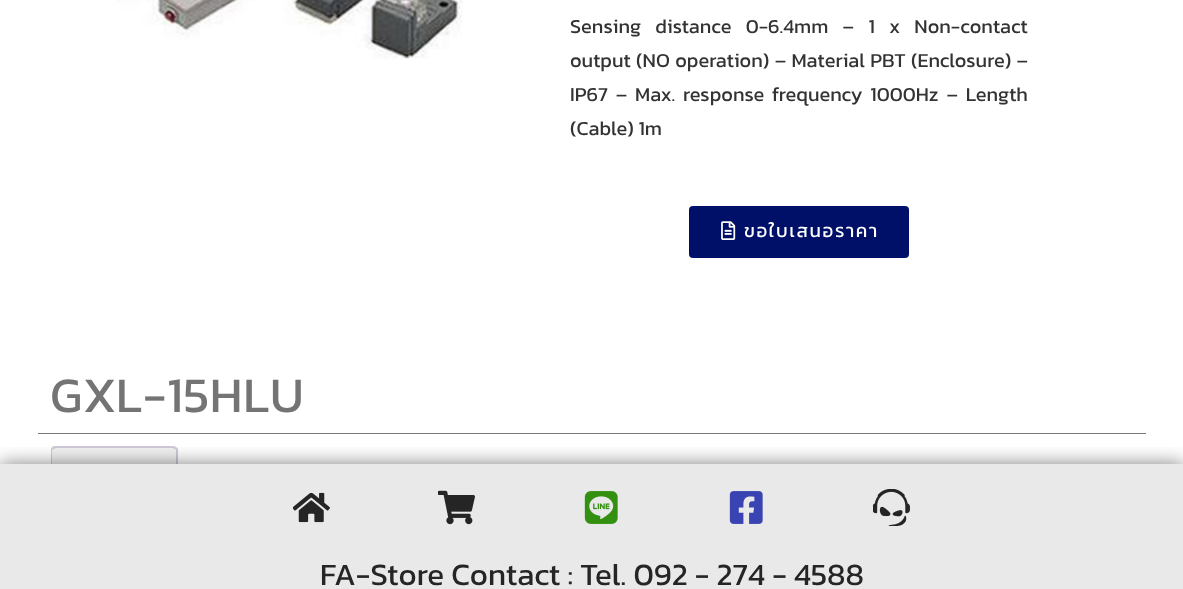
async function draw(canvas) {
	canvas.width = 1183;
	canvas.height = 589;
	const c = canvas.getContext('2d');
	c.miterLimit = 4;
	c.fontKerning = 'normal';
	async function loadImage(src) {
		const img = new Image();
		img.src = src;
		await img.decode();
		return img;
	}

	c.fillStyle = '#fff';
	c.fillRect(0, 0, 1183, 589);
	c.drawImage(await loadImage('img1.png'), 116, 0, 347, 59);
	c.wordSpacing = '9.75px';
	c.font = '20px Kanit';
	c.fillStyle = '#333';
	c.fillText('Sensing distance 0-6.4mm – 1 x Non-contact', 570, 33);
	c.wordSpacing = '0.75px';
	c.fillText('output (NO operation) – Material PBT (Enclosure) –', 570, 67);
	c.wordSpacing = '3.25px';
	c.fillText('IP67 – Max. response frequency 1000Hz – Length', 570, 101);
	c.wordSpacing = '0px';
	c.fillText('(Cable) 1m', 570, 135);
	c.fillStyle = '#001068';
	c.beginPath();
	c.roundRect(689, 206, 220, 52, 4);
	c.fill();
	c.drawImage(await loadImage('img2.png'), 721, 221, 15, 19);
	c.letterSpacing = '1.6px';
	c.font = '18.75px Kanit';
	c.fillStyle = '#fff';
	c.fillText('ขอใบเสนอราคา', 744, 237);
	c.fillStyle = '#7a7a7a';
	c.fillRect(38, 433, 1108, 1);
	c.letterSpacing = '0.6px';
	c.font = '50px Kanit';
	c.fillStyle = '#747474';
	c.fillText('GXL-15HLU', 50, 412);
	c.fillStyle = '#f2f2f2';
	c.beginPath();
	c.roundRect(51, 446, 127, 54, [5, 5, 0, 0]);
	c.fill();
	c.fillStyle = '#cfc8d8';
	c.beginPath();
	c.moveTo(56, 448);
	c.lineTo(54, 449);
	c.lineTo(52, 447);
	c.lineTo(54, 446);
	c.lineTo(174, 446);
	c.lineTo(176, 447);
	c.lineTo(175, 449);
	c.lineTo(172, 448);
	c.closePath();
	c.fill();
	c.beginPath();
	c.moveTo(178, 449);
	c.lineTo(178, 500);
	c.lineTo(176, 498);
	c.lineTo(176, 450);
	c.lineTo(175, 449);
	c.lineTo(176, 447);
	c.closePath();
	c.fill();
	c.beginPath();
	c.moveTo(51, 500);
	c.lineTo(51, 449);
	c.lineTo(52, 447);
	c.lineTo(54, 449);
	c.lineTo(52, 450);
	c.lineTo(52, 499);
	c.closePath();
	c.fill();
	c.fillStyle = '#e9e9e9';
	c.fillRect(0, 464, 1183, 82);
	c.save();
	c.beginPath();
	c.rect(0, 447, 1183, 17);
	c.clip();
	c.fillStyle = '#00000080';
	c.filter = 'blur(9.5px)';
	c.beginPath();
	c.rect(0, 464, 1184, 95);
	c.fill();
	c.filter = 'none';
	c.restore();
	c.drawImage(await loadImage('img3.png'), 293, 492, 37, 31);
	c.drawImage(await loadImage('img4.png'), 438, 490, 37, 35);
	c.drawImage(await loadImage('img5.png'), 584, 491, 34, 33);
	c.drawImage(await loadImage('img6.png'), 729, 491, 34, 33);
	c.drawImage(await loadImage('img7.png'), 873, 489, 37, 37);
	c.fillRect(0, 546, 1183, 43);
	c.letterSpacing = '0px';
	c.font = '31.25px Kanit';
	c.fillStyle = '#252525';
	c.fillText('FA-Store Contact : Tel. 092 - 274 - 4588', 320, 585);
}

draw(document.querySelector('canvas'));
